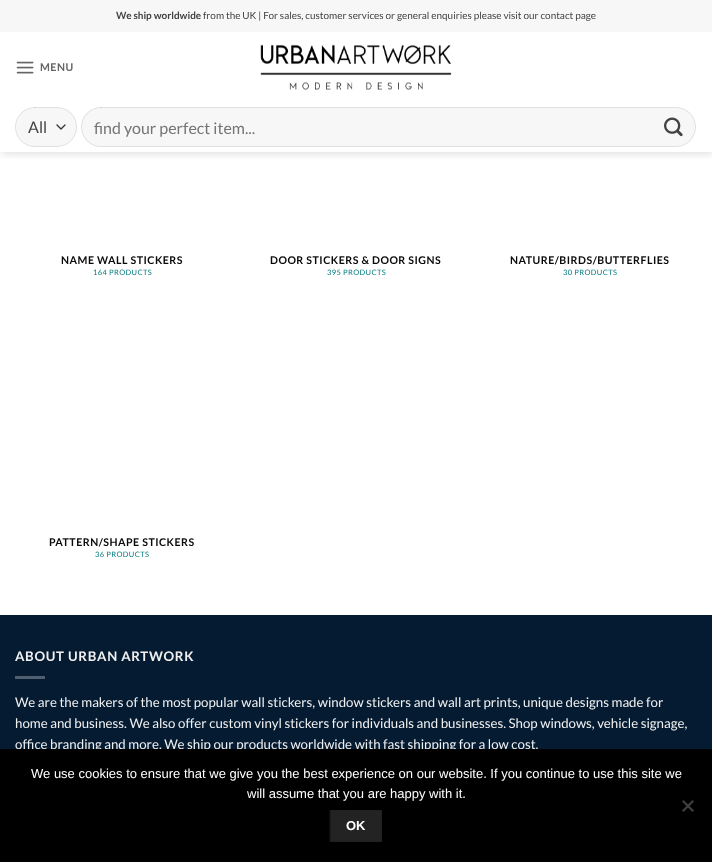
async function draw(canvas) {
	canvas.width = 712;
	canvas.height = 862;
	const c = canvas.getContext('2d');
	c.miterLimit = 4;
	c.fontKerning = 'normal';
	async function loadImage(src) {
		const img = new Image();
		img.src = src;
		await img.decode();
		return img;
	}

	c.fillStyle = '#fff';
	c.fillRect(0, 0, 712, 862);
	c.save();
	c.beginPath();
	c.rect(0, 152, 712, 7);
	c.clip();
	c.fillStyle = '#00000026';
	c.filter = 'blur(5px)';
	c.beginPath();
	c.rect(1, 1, 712, 152);
	c.fill();
	c.filter = 'none';
	c.restore();
	c.fillStyle = '#f7f7f7';
	c.fillRect(0, 0, 712, 32);
	c.font = 'bold 9.95px Lato';
	c.fillStyle = '#424242';
	c.fillText('We ship worldwide', 116, 19);
	c.font = '9.95px Lato';
	c.fillText('from the UK | For sales, customer services or general enquiries please visit our contact page', 203, 19);
	c.drawImage(await loadImage('img1.png'), 16, 61, 18, 13);
	c.letterSpacing = '0.5px';
	c.font = 'bold 10.6px Lato';
	c.fillStyle = '#656565';
	c.fillText('MENU', 40, 71);
	c.drawImage(await loadImage('img2.png'), 260, 44, 192, 46);
	c.fillStyle = '#f7f7f7';
	c.beginPath();
	c.roundRect(15, 107, 62, 40, 20);
	c.fill();
	c.beginPath();
	c.moveTo(57, 125);
	c.lineTo(61, 129);
	c.lineTo(65, 125);
	c.strokeStyle = '#333';
	c.lineWidth = 1.3;
	c.lineCap = 'round';
	c.lineJoin = 'round';
	c.stroke();
	c.beginPath();
	c.roundRect(15.5, 107.5, 61, 39, 19.5);
	c.strokeStyle = '#00000017';
	c.lineWidth = 1;
	c.lineJoin = 'miter';
	c.stroke();
	c.letterSpacing = '0px';
	c.font = '16px Lato';
	c.fillStyle = '#424242';
	c.fillText('All', 28, 133);
	c.fillStyle = '#f7f7f7';
	c.beginPath();
	c.roundRect(81, 107, 615, 40, 20);
	c.fill();
	c.beginPath();
	c.roundRect(81.5, 107.5, 614, 39, 19.5);
	c.stroke();
	c.fillStyle = '#757575';
	c.fillText('find your perfect item...', 94, 134);
	c.drawImage(await loadImage('img3.png'), 664, 117, 19, 20);
	c.letterSpacing = '0.5px';
	c.font = 'bold 10.6px Lato';
	c.fillStyle = '#0a0a0a';
	c.fillText('NAME WALL STICKERS', 61, 264);
	c.letterSpacing = '0.4px';
	c.font = '7.5px Lato';
	c.fillStyle = '#01797f';
	c.fillText('164 PRODUCTS', 93, 275);
	c.letterSpacing = '0.5px';
	c.font = 'bold 10.6px Lato';
	c.fillStyle = '#0a0a0a';
	c.fillText('DOOR STICKERS & DOOR SIGNS', 270, 264);
	c.letterSpacing = '0.4px';
	c.font = '7.5px Lato';
	c.fillStyle = '#01797f';
	c.fillText('395 PRODUCTS', 327, 275);
	c.letterSpacing = '0.5px';
	c.font = 'bold 10.6px Lato';
	c.fillStyle = '#0a0a0a';
	c.fillText('NATURE/BIRDS/BUTTERFLIES', 510, 264);
	c.letterSpacing = '0.4px';
	c.font = '7.5px Lato';
	c.fillStyle = '#01797f';
	c.fillText('30 PRODUCTS', 563, 275);
	c.letterSpacing = '0.5px';
	c.font = 'bold 10.6px Lato';
	c.fillStyle = '#0a0a0a';
	c.fillText('PATTERN/SHAPE STICKERS', 49, 546);
	c.letterSpacing = '0.4px';
	c.font = '7.5px Lato';
	c.fillStyle = '#01797f';
	c.fillText('36 PRODUCTS', 95, 557);
	c.fillStyle = '#051b32';
	c.fillRect(0, 616, 712, 133);
	c.fillStyle = '#051a30';
	c.fillRect(0, 615, 712, 1);
	c.letterSpacing = '0.7px';
	c.font = 'bold 13.28px Lato';
	c.fillStyle = '#f1f1f1';
	c.fillText('ABOUT URBAN ARTWORK', 15, 661);
	c.fillStyle = '#505f70';
	c.fillRect(15, 676, 30, 3);
	c.letterSpacing = '0px';
	c.font = '13.28px Lato';
	c.fillStyle = '#f1f1f1';
	for (const [text, x, y] of [
		['We are the makers of the most popular wall stickers, window stickers and wall art prints, unique designs made for', 15, 707],
		['home and business. We also offer custom vinyl stickers for individuals and businesses. Shop windows, vehicle signage,', 15, 728],
		['office branding and more. We ship our products worldwide with fast shipping for a low cost.', 15, 749],
	]) {
		c.fillText(text, x, y);
	}
	c.fillStyle = '#000';
	c.fillRect(0, 749, 712, 113);
	c.font = '13px Liberation Sans';
	c.fillStyle = '#fff';
	c.fillText('We use cookies to ensure that we give you the best experience on our website. If you continue to use this site we', 31, 778);
	c.fillText('will assume that you are happy with it.', 247, 798);
	c.fillStyle = '#404040';
	c.beginPath();
	c.moveTo(692.5, 800);
	c.lineTo(694, 801.5);
	c.lineTo(683.5, 812);
	c.lineTo(682, 810.5);
	c.closePath();
	c.fill();
	c.beginPath();
	c.moveTo(682, 801.5);
	c.lineTo(683.5, 800);
	c.lineTo(694, 810.5);
	c.lineTo(692.5, 812);
	c.closePath();
	c.fill();
	c.fillStyle = '#232323';
	c.beginPath();
	c.rect(330.5, 810.5, 51, 31);
	c.fill();
	c.strokeStyle = '#212121';
	c.stroke();
	c.font = 'bold 13px Liberation Sans';
	c.fillStyle = '#fff';
	c.fillText('OK', 346, 830);
}

draw(document.querySelector('canvas'));
